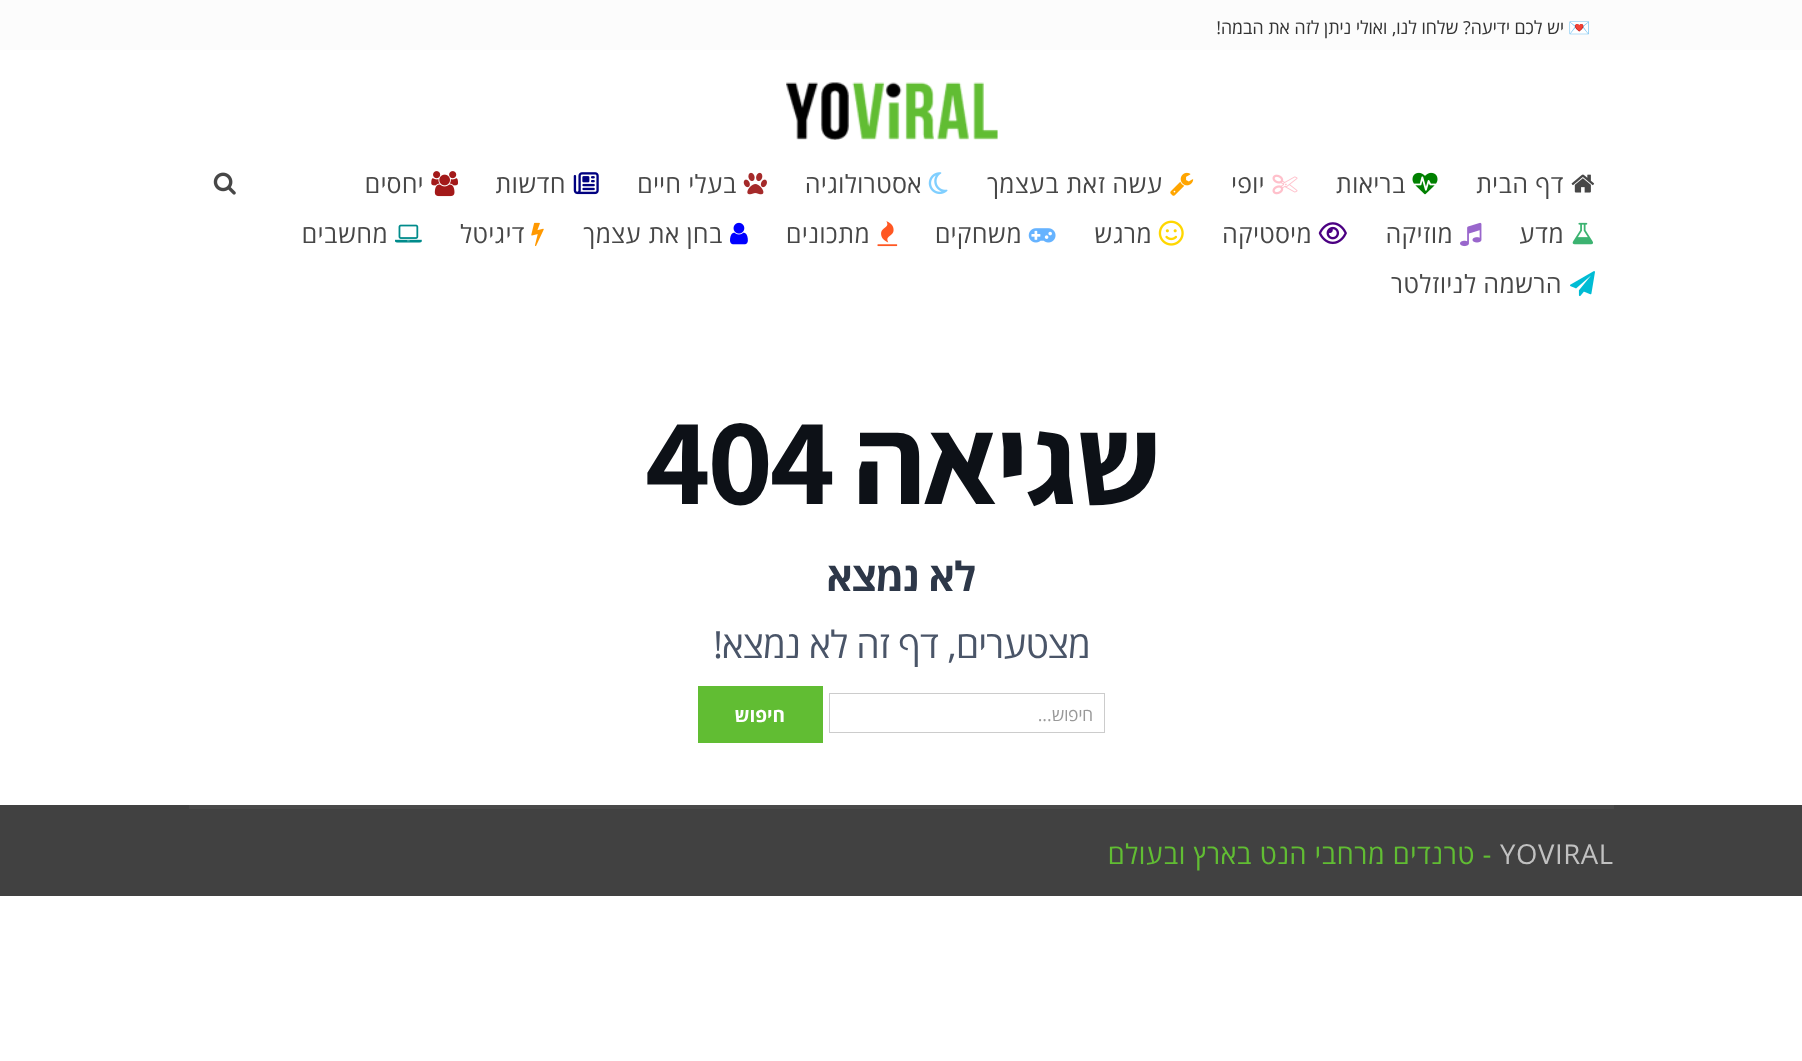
async function draw(canvas) {
	canvas.width = 1802;
	canvas.height = 1061;
	const c = canvas.getContext('2d');
	c.miterLimit = 4;
	c.fontKerning = 'normal';
	async function loadImage(src) {
		const img = new Image();
		img.src = src;
		await img.decode();
		return img;
	}

	c.fillStyle = '#fff';
	c.fillRect(0, 0, 1802, 1061);
	c.fillStyle = '#fcfcfc';
	c.fillRect(0, 0, 1802, 50);
	c.direction = 'rtl';
	c.font = '18px Noto Color Emoji';
	c.fillStyle = '#333';
	c.fillText('💌', 1591, 34);
	c.font = '18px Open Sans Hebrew';
	c.fillText('יש לכם ידיעה? שלחו לנו, ואולי ניתן לזה את הבמה!', 1564, 34);
	c.drawImage(await loadImage('img1.png'), 786, 82, 212, 58);
	c.drawImage(await loadImage('img2.png'), 1571, 174, 24, 19);
	c.letterSpacing = '0.6px';
	c.font = '25px Open Sans Hebrew';
	c.fillStyle = '#474747';
	c.fillText('דף הבית', 1564, 193);
	c.drawImage(await loadImage('img3.png'), 1412, 172, 26, 23);
	c.fillText('בריאות', 1406, 193);
	c.drawImage(await loadImage('img4.png'), 1272, 174, 26, 21);
	c.fillText('יופי', 1265, 193);
	c.drawImage(await loadImage('img5.png'), 1170, 172, 24, 24);
	c.fillText('עשה זאת בעצמך', 1163, 193);
	c.drawImage(await loadImage('img6.png'), 928, 172, 20, 23);
	c.fillText('אסטרולוגיה', 922, 193);
	c.drawImage(await loadImage('img7.png'), 743, 172, 24, 23);
	c.fillText('בעלי חיים', 737, 193);
	c.drawImage(await loadImage('img8.png'), 573, 172, 26, 23);
	c.fillText('חדשות', 566, 193);
	c.drawImage(await loadImage('img9.png'), 431, 171, 27, 26);
	c.fillText('יחסים', 424, 193);
	c.drawImage(await loadImage('img10.png'), 1572, 222, 21, 23);
	c.fillText('מדע', 1564, 243);
	c.drawImage(await loadImage('img11.png'), 1460, 222, 22, 25);
	c.fillText('מוזיקה', 1453, 243);
	c.drawImage(await loadImage('img12.png'), 1318, 222, 29, 23);
	c.fillText('מיסטיקה', 1312, 243);
	c.drawImage(await loadImage('img13.png'), 1158, 220, 26, 26);
	c.fillText('מרגש', 1152, 243);
	c.drawImage(await loadImage('img14.png'), 1028, 228, 28, 15);
	c.fillText('משחקים', 1022, 243);
	c.drawImage(await loadImage('img15.png'), 877, 221, 21, 26);
	c.fillText('מתכונים', 870, 243);
	c.drawImage(await loadImage('img16.png'), 730, 222, 18, 23);
	c.fillText('בחן את עצמך', 723, 243);
	c.drawImage(await loadImage('img17.png'), 531, 222, 13, 25);
	c.fillText('דיגיטל', 525, 243);
	c.drawImage(await loadImage('img18.png'), 395, 224, 27, 19);
	c.fillText('מחשבים', 388, 243);
	c.drawImage(await loadImage('img19.png'), 1570, 271, 25, 26);
	c.fillText('הרשמה לניוזלטר', 1562, 293);
	c.drawImage(await loadImage('img20.png'), 213, 172, 23, 23);
	c.letterSpacing = '-3px';
	c.font = 'bold 125px Assistant';
	c.fillStyle = '#0d1117';
	c.fillText('שגיאה', 1157, 504);
	c.direction = 'ltr';
	c.fillText('404', 645, 504);
	c.letterSpacing = '-0.75px';
	c.direction = 'rtl';
	c.font = 'bold 40px Open Sans Hebrew';
	c.fillStyle = '#2d3748';
	c.fillText('לא נמצא', 975, 591);
	c.letterSpacing = '-0.6px';
	c.font = '37.5px Open Sans Hebrew';
	c.fillStyle = '#4a5568';
	c.fillText('מצטערים, דף זה לא נמצא!', 1090, 658);
	c.strokeStyle = '#ccc';
	c.strokeRect(829.5, 693.5, 275, 39);
	c.letterSpacing = '0px';
	c.font = '17.5px Open Sans Hebrew';
	c.fillStyle = '#999';
	c.fillText('חיפוש...', 1093, 721);
	c.fillStyle = '#61bd33';
	c.fillRect(698, 686, 125, 57);
	c.font = 'bold 19px Open Sans Hebrew';
	c.fillStyle = '#fff';
	c.fillText('חיפוש', 785, 722);
	c.fillStyle = '#414141';
	c.fillRect(0, 805, 1802, 91);
	c.fillStyle = '#494949';
	c.fillRect(189, 805, 1425, 4);
	c.letterSpacing = '0.6px';
	c.direction = 'ltr';
	c.font = '27.5px Open Sans Hebrew';
	c.fillStyle = '#c1c1c1';
	c.fillText('YOVIRAL', 1500, 864);
	c.direction = 'rtl';
	c.fillStyle = '#61bd33';
	c.fillText('- טרנדים מרחבי הנט בארץ ובעולם', 1492, 864);
}

draw(document.querySelector('canvas'));
